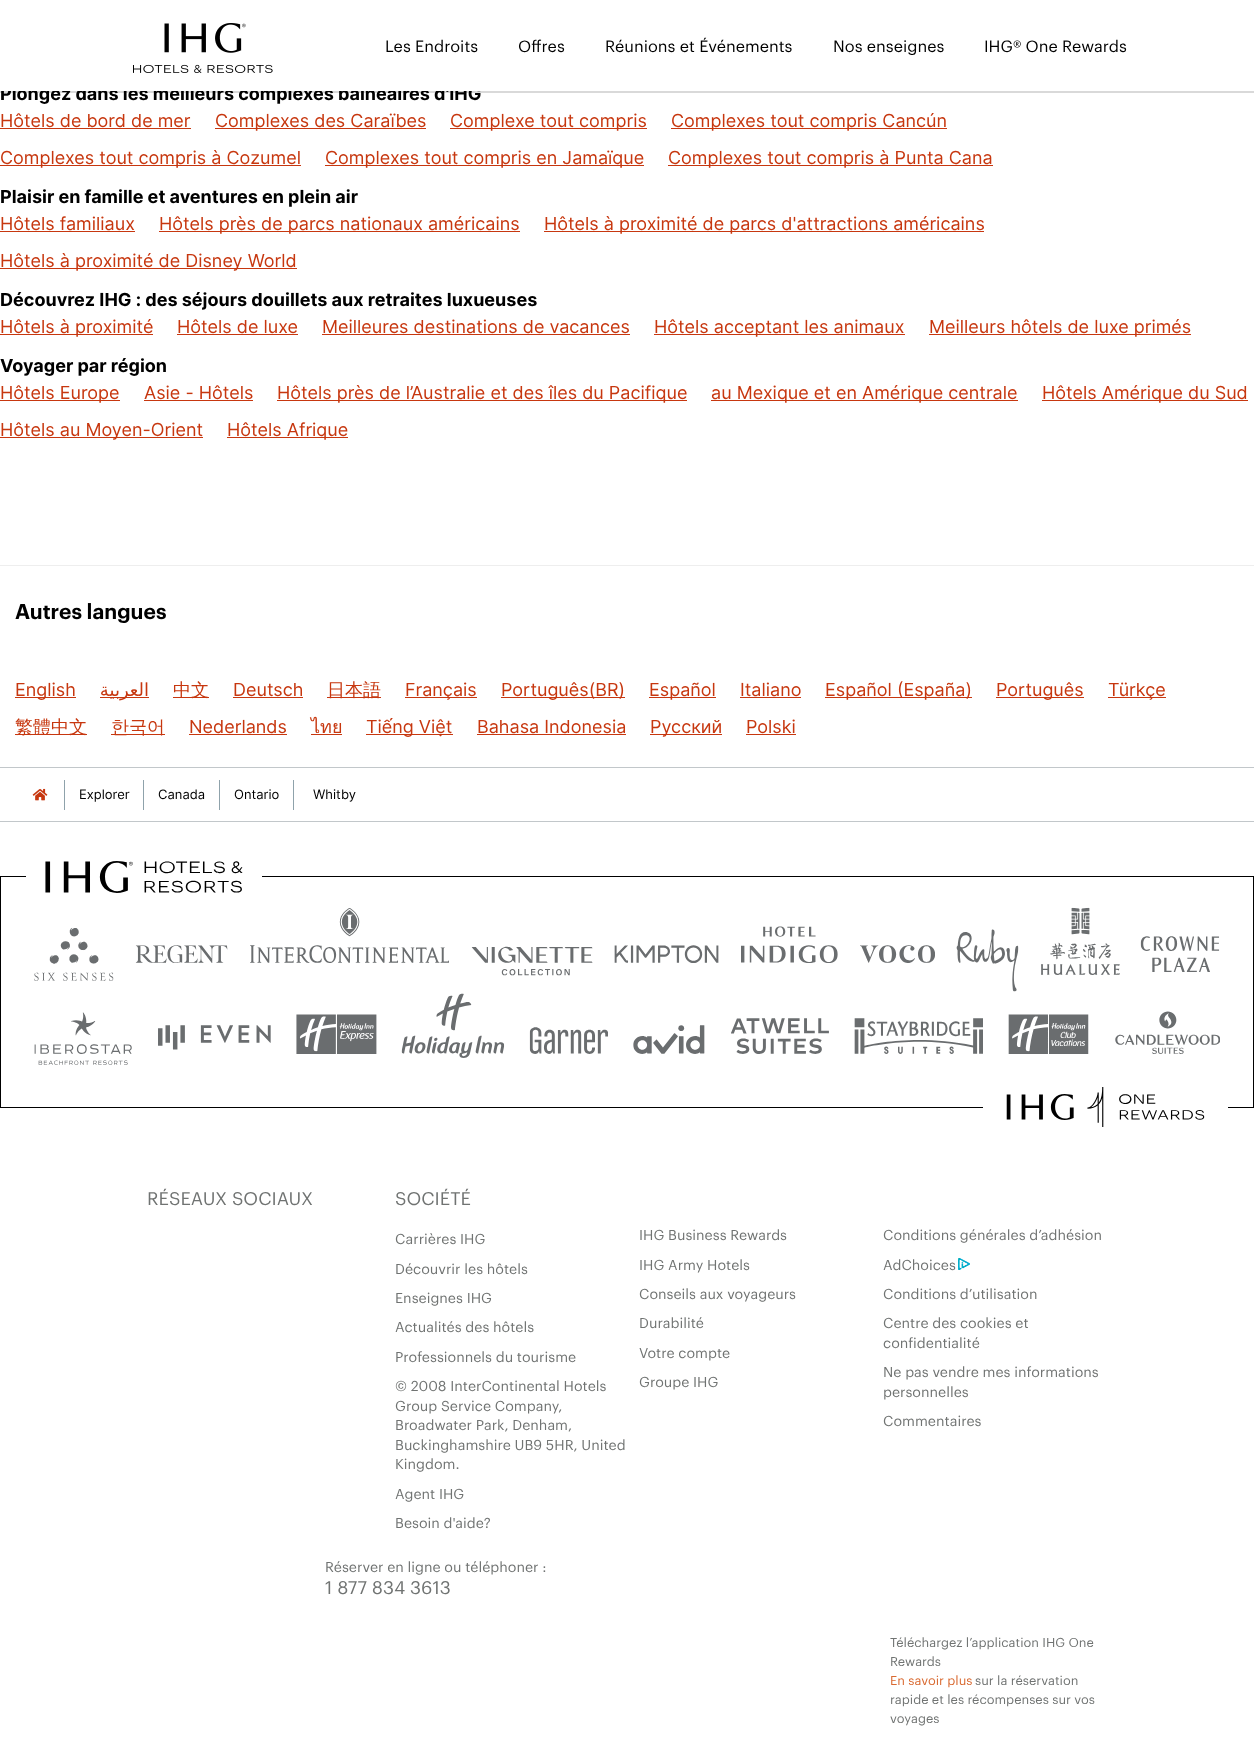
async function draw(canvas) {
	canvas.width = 1254;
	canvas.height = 1757;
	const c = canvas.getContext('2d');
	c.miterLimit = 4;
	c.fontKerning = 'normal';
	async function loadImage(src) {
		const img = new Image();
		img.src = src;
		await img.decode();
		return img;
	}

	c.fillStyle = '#fff';
	c.fillRect(0, 0, 1254, 1757);
	c.font = 'bold 18px Inter';
	c.fillStyle = '#000';
	c.fillText('Plongez dans les meilleurs complexes balnéaires d\'IHG', 0, 100);
	c.fillStyle = '#00000026';
	c.fillRect(0, 91, 1254, 2);
	c.fillStyle = '#fff';
	c.fillRect(1, 86, 480, 5);
	c.drawImage(await loadImage('img1.png'), 133, 23, 140, 50);
	c.font = '16px Graphik';
	c.fillStyle = '#000';
	for (const [text, x, y] of [
		['Les Endroits', 385, 52],
		['Offres', 518, 52],
		['Réunions et Événements', 605, 52],
		['Nos enseignes', 833, 52],
		['IHG® One Rewards', 984, 52],
	]) {
		c.fillText(text, x, y);
	}
	c.font = '18px Inter';
	c.fillStyle = '#c7370f';
	c.fillText('Hôtels de bord de mer', 0, 127);
	c.fillRect(0, 128, 191, 1);
	c.fillRect(215, 128, 211, 1);
	c.fillText('Complexes des Caraïbes', 215, 127);
	c.fillRect(450, 128, 197, 1);
	c.fillText('Complexe tout compris', 450, 127);
	c.fillRect(671, 128, 276, 1);
	c.fillText('Complexes tout compris Cancún', 671, 127);
	c.fillRect(0, 165, 301, 1);
	c.fillText('Complexes tout compris à Cozumel', 0, 164);
	c.fillRect(325, 165, 319, 1);
	c.fillText('Complexes tout compris en Jamaïque', 325, 164);
	c.fillRect(668, 165, 325, 1);
	c.fillText('Complexes tout compris à Punta Cana', 668, 164);
	c.font = 'bold 18px Inter';
	c.fillStyle = '#000';
	c.fillText('Plaisir en famille et aventures en plein air', 0, 203);
	c.font = '18px Inter';
	c.fillStyle = '#c7370f';
	c.fillText('Hôtels familiaux', 0, 230);
	c.fillRect(0, 231, 135, 1);
	c.fillRect(159, 231, 361, 1);
	c.fillText('Hôtels près de parcs nationaux américains', 159, 230);
	c.fillRect(544, 231, 440, 1);
	c.fillText('Hôtels à proximité de parcs d\'attractions américains', 544, 230);
	c.fillRect(0, 268, 297, 1);
	c.fillText('Hôtels à proximité de Disney World', 0, 267);
	c.font = 'bold 18px Inter';
	c.fillStyle = '#000';
	c.fillText('Découvrez IHG : des séjours douillets aux retraites luxueuses', 0, 306);
	c.fillStyle = '#c7370f';
	c.fillRect(0, 334, 153, 1);
	c.font = '18px Inter';
	c.fillText('Hôtels à proximité', 0, 333);
	c.fillText('Hôtels de luxe', 177, 333);
	c.fillRect(177, 334, 121, 1);
	c.fillText('Meilleures destinations de vacances', 322, 333);
	c.fillRect(322, 334, 308, 1);
	c.fillRect(654, 334, 251, 1);
	c.fillText('Hôtels acceptant les animaux', 654, 333);
	c.fillRect(929, 334, 262, 1);
	c.fillText('Meilleurs hôtels de luxe primés', 929, 333);
	c.font = 'bold 18px Inter';
	c.fillStyle = '#000';
	c.fillText('Voyager par région', 0, 372);
	c.fillStyle = '#c7370f';
	c.fillRect(0, 400, 120, 1);
	c.font = '18px Inter';
	c.fillText('Hôtels Europe', 0, 399);
	c.fillText('Asie - Hôtels', 144, 399);
	c.fillRect(144, 400, 109, 1);
	c.fillRect(277, 400, 410, 1);
	c.fillText('Hôtels près de l’Australie et des îles du Pacifique', 277, 399);
	c.fillRect(711, 400, 307, 1);
	c.fillText('au Mexique et en Amérique centrale', 711, 399);
	c.fillRect(1042, 400, 206, 1);
	c.fillText('Hôtels Amérique du Sud', 1042, 399);
	c.fillRect(0, 437, 203, 1);
	c.fillText('Hôtels au Moyen-Orient', 0, 436);
	c.fillRect(227, 437, 121, 1);
	c.fillText('Hôtels Afrique', 227, 436);
	c.fillStyle = '#eee';
	c.fillRect(0, 565, 1254, 1);
	c.font = '600 21px Graphik';
	c.fillStyle = '#000';
	c.fillText('Autres langues', 15, 619);
	c.fillStyle = '#c7370f';
	c.fillRect(15, 697, 61, 1);
	c.font = '18px Inter';
	c.fillText('English', 15, 696);
	c.fillRect(100, 697, 49, 1);
	c.direction = 'rtl';
	c.font = '18px DejaVu Sans';
	c.fillText('العربية', 149, 696);
	c.fillRect(173, 697, 36, 1);
	c.direction = 'ltr';
	c.font = '500 18px WenQuanYi Zen Hei';
	c.fillText('中文', 173, 696);
	c.font = '18px Inter';
	c.fillText('Deutsch', 233, 696);
	c.fillRect(233, 697, 70, 1);
	c.fillRect(327, 697, 54, 1);
	c.font = '500 18px WenQuanYi Zen Hei';
	c.fillText('日本語', 327, 696);
	c.fillRect(405, 697, 72, 1);
	c.font = '18px Inter';
	c.fillText('Français', 405, 696);
	c.fillRect(501, 697, 124, 1);
	c.fillText('Português(BR)', 501, 696);
	c.fillRect(649, 697, 67, 1);
	c.fillText('Español', 649, 696);
	c.fillText('Italiano', 740, 696);
	c.fillRect(740, 697, 61, 1);
	c.fillRect(825, 697, 147, 1);
	c.fillText('Español (España)', 825, 696);
	c.fillRect(996, 697, 88, 1);
	c.fillText('Português', 996, 696);
	c.fillRect(1108, 697, 58, 1);
	c.fillText('Türkçe', 1108, 696);
	c.fillRect(15, 734, 72, 1);
	c.font = '500 18px WenQuanYi Zen Hei';
	c.fillText('繁體中文', 15, 733);
	c.fillRect(111, 734, 54, 1);
	c.fillText('한국어', 111, 733);
	c.font = '18px Inter';
	c.fillText('Nederlands', 189, 733);
	c.fillRect(189, 734, 98, 1);
	c.font = '18px Loma';
	c.fillText('ไทย', 311, 733);
	c.fillRect(311, 734, 31, 1);
	c.fillRect(366, 734, 87, 1);
	c.font = '18px Inter';
	c.fillText('Tiếng Việt', 366, 733);
	c.fillText('Bahasa Indonesia', 477, 733);
	c.fillRect(477, 734, 149, 1);
	c.fillRect(650, 734, 72, 1);
	c.fillText('Русский', 650, 733);
	c.fillText('Polski', 746, 733);
	for (const [x, y, w, h, color] of [
		[746, 734, 50, 1, '#c7370f'],
		[0, 767, 1254, 1, '#c2c7ca'],
		[0, 821, 1254, 1, '#c2c7ca'],
	]) {
		c.fillStyle = color;
		c.fillRect(x, y, w, h);
	}
	c.drawImage(await loadImage('img2.png'), 32, 788, 16, 13);
	c.fillStyle = '#8fa2ab';
	c.fillRect(64, 780, 1, 30);
	c.font = '13px Inter';
	c.fillStyle = '#000';
	c.fillText('Explorer', 79, 799);
	c.fillStyle = '#8fa2ab';
	c.fillRect(143, 780, 1, 30);
	c.fillStyle = '#000';
	c.fillText('Canada', 158, 799);
	c.fillStyle = '#8fa2ab';
	c.fillRect(219, 780, 1, 30);
	c.fillStyle = '#000';
	c.fillText('Ontario', 234, 799);
	c.fillStyle = '#8fa2ab';
	c.fillRect(293, 780, 1, 30);
	c.fillStyle = '#000';
	c.fillText('Whitby', 313, 799);
	c.strokeStyle = '#000';
	c.strokeRect(0.5, 876.5, 1253, 231);
	c.fillStyle = '#fff';
	c.fillRect(26, 876, 236, 1);
	c.drawImage(await loadImage('img3.png'), 45, 861, 198, 32);
	c.drawImage(await loadImage('img4.png'), 34, 927, 80, 54);
	c.drawImage(await loadImage('img5.png'), 135, 945, 93, 18);
	c.drawImage(await loadImage('img6.png'), 250, 908, 199, 55);
	c.drawImage(await loadImage('img7.png'), 471, 946, 122, 30);
	c.drawImage(await loadImage('img8.png'), 614, 945, 105, 18);
	c.drawImage(await loadImage('img9.png'), 741, 926, 97, 37);
	c.drawImage(await loadImage('img10.png'), 860, 945, 75, 18);
	c.drawImage(await loadImage('img11.png'), 956, 929, 63, 63);
	c.drawImage(await loadImage('img12.png'), 1041, 907, 79, 68);
	c.drawImage(await loadImage('img13.png'), 1140, 936, 80, 36);
	c.drawImage(await loadImage('img14.png'), 34, 1012, 98, 53);
	c.drawImage(await loadImage('img15.png'), 158, 1025, 113, 25);
	c.drawImage(await loadImage('img16.png'), 296, 1014, 81, 40);
	c.drawImage(await loadImage('img17.png'), 401, 993, 104, 65);
	c.drawImage(await loadImage('img18.png'), 529, 1027, 79, 27);
	c.drawImage(await loadImage('img19.png'), 633, 1025, 72, 29);
	c.drawImage(await loadImage('img20.png'), 731, 1018, 98, 36);
	c.drawImage(await loadImage('img21.png'), 854, 1018, 129, 36);
	c.drawImage(await loadImage('img22.png'), 1008, 1014, 81, 40);
	c.drawImage(await loadImage('img23.png'), 1115, 1011, 105, 43);
	c.fillRect(983, 1107, 245, 1);
	c.drawImage(await loadImage('img24.png'), 1006, 1087, 199, 40);
	c.font = '18px Graphik';
	c.fillStyle = '#707372';
	c.fillText('RÉSEAUX SOCIAUX', 147, 1205);
	c.fillText('SOCIÉTÉ', 395, 1205);
	c.font = '14px Graphik';
	for (const [text, x, y] of [
		['Carrières IHG', 395, 1244],
		['Découvrir les hôtels', 395, 1274],
		['Enseignes IHG', 395, 1303],
		['Actualités des hôtels', 395, 1332],
		['Professionnels du tourisme', 395, 1362],
		['© 2008 InterContinental Hotels', 395, 1391],
		['Group Service Company,', 395, 1411],
		['Broadwater Park, Denham,', 395, 1430],
		['Buckinghamshire UB9 5HR, United', 395, 1450],
		['Kingdom.', 395, 1469],
		['Agent IHG', 395, 1499],
		['Besoin d\'aide?', 395, 1528],
		['IHG Business Rewards', 639, 1240],
		['IHG Army Hotels', 639, 1270],
		['Conseils aux voyageurs', 639, 1299],
		['Durabilité', 639, 1328],
		['Votre compte', 639, 1358],
		['Groupe IHG', 639, 1387],
		['Conditions générales d’adhésion', 883, 1240],
		['AdChoices', 883, 1270],
	]) {
		c.fillText(text, x, y);
	}
	c.drawImage(await loadImage('img25.png'), 958, 1258, 12, 12);
	for (const [text, x, y] of [
		['Conditions d’utilisation', 883, 1299],
		['Centre des cookies et', 883, 1328],
		['confidentialité', 883, 1348],
		['Ne pas vendre mes informations', 883, 1377],
		['personnelles', 883, 1397],
		['Commentaires', 883, 1426],
		['Réserver en ligne ou téléphoner :', 325, 1572],
	]) {
		c.fillText(text, x, y);
	}
	c.font = '18px Graphik';
	c.fillText('1 877 834 3613', 325, 1594);
	c.font = '12.6px Graphik';
	c.fillText('Téléchargez l’application IHG One', 890, 1647);
	c.fillText('Rewards', 890, 1666);
	c.fillStyle = '#d96930';
	c.fillText('En savoir plus', 890, 1685);
	c.fillStyle = '#707372';
	for (const [text, x, y] of [
		['sur la réservation', 975, 1685],
		['rapide et les récompenses sur vos', 890, 1704],
		['voyages', 890, 1723],
	]) {
		c.fillText(text, x, y);
	}
}

draw(document.querySelector('canvas'));
